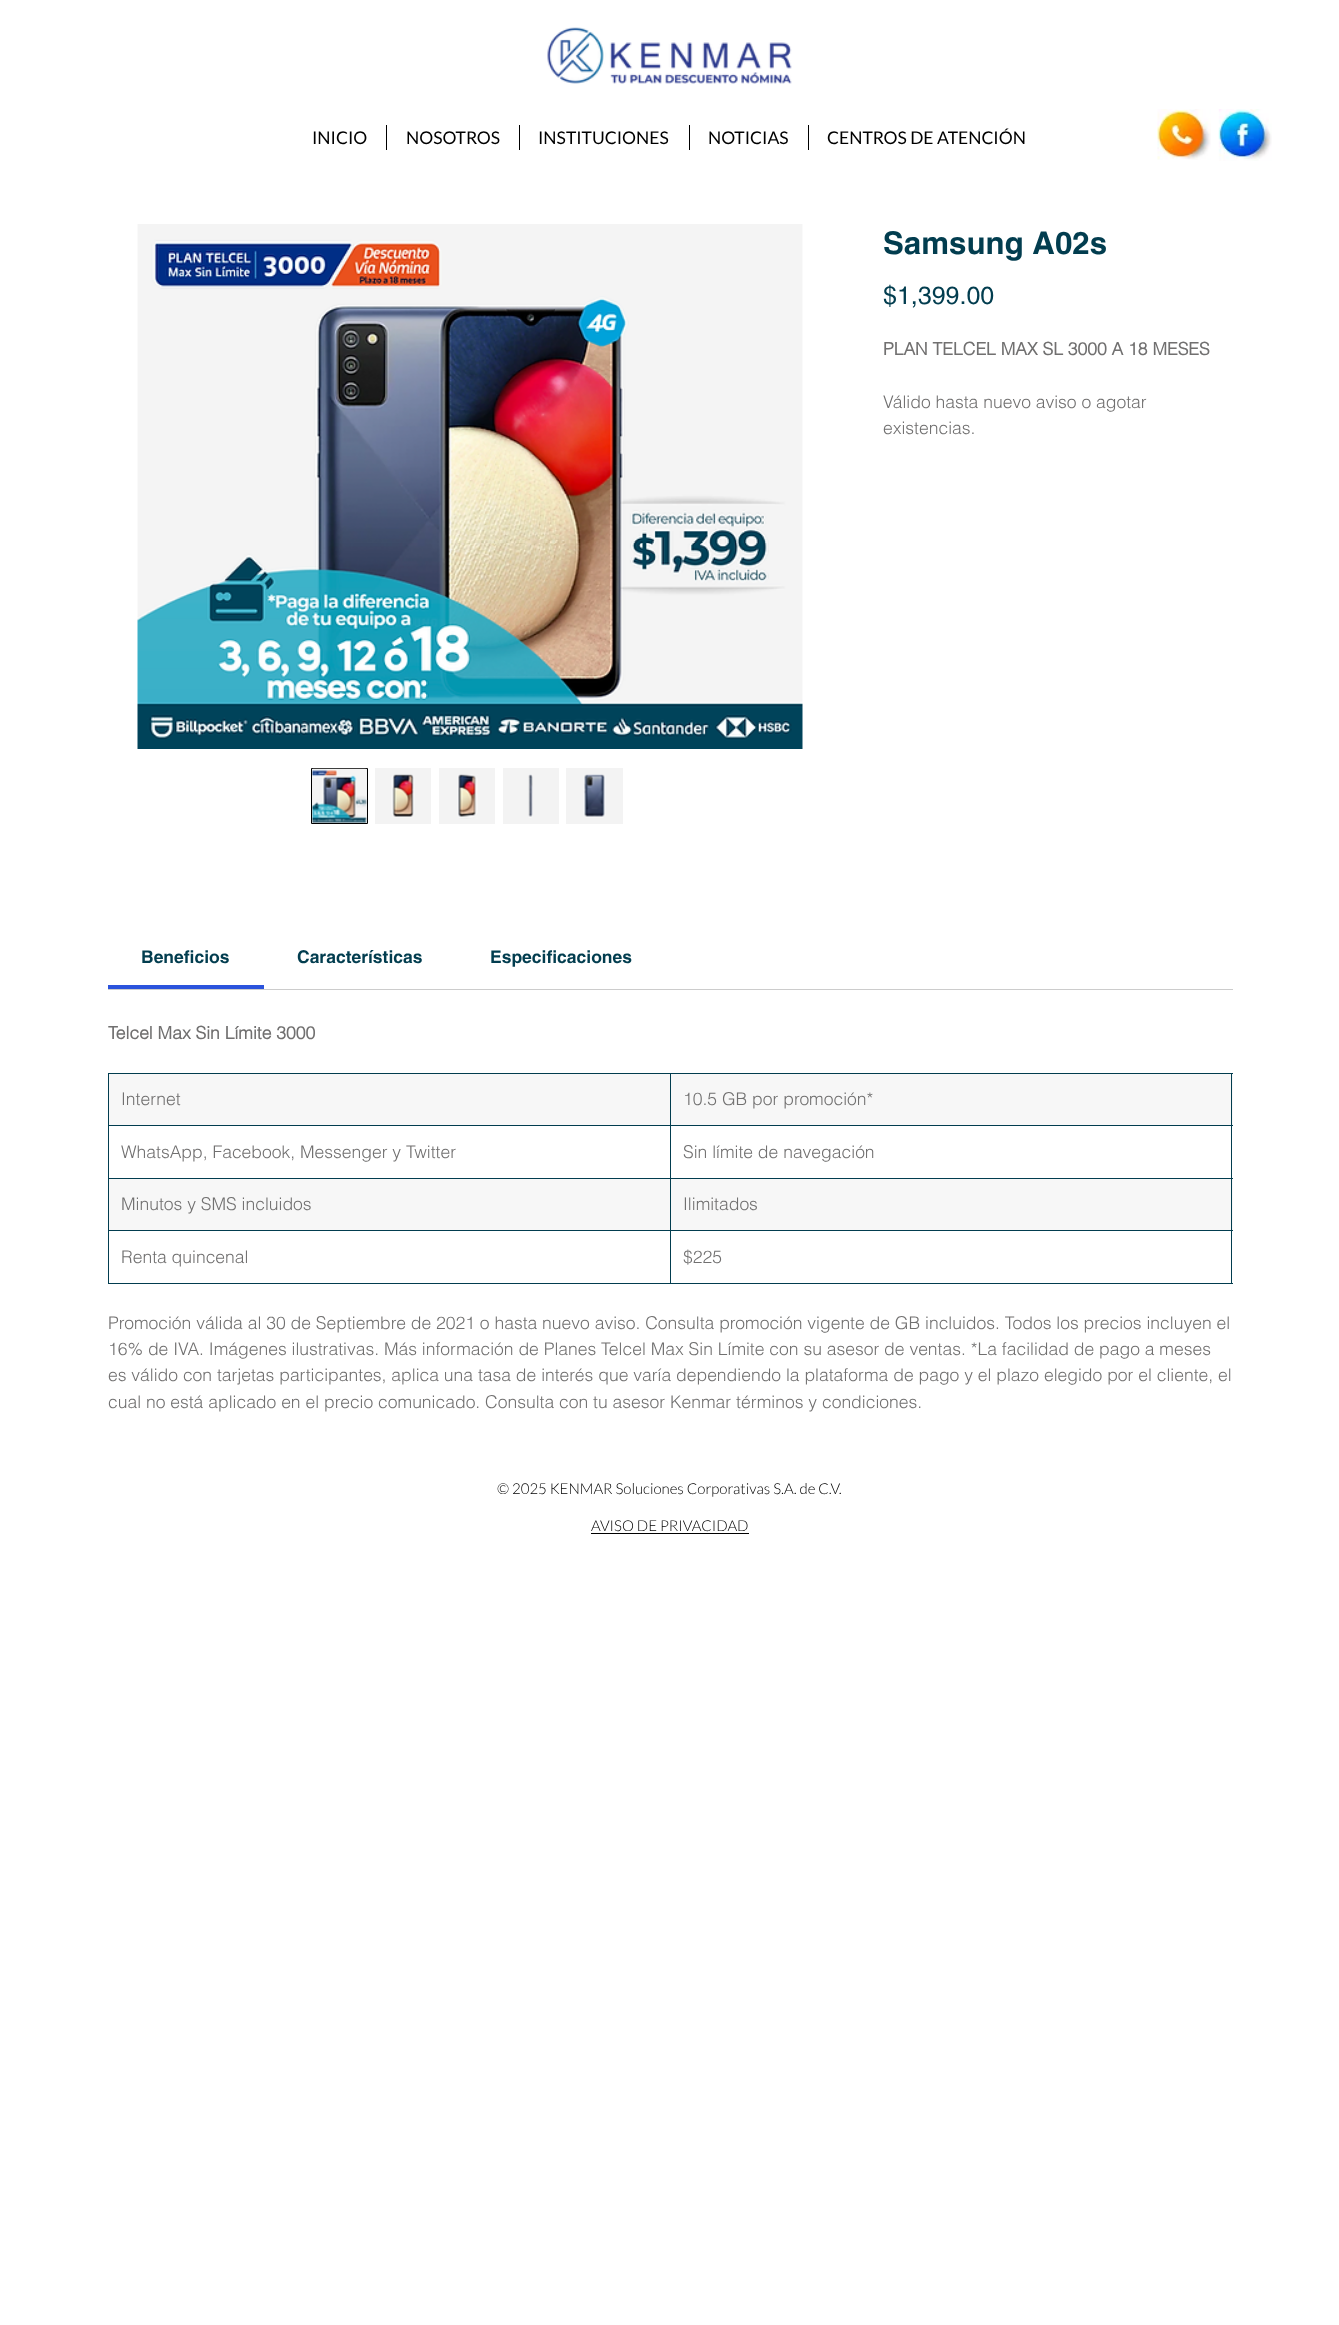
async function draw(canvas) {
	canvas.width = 1339;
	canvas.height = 2325;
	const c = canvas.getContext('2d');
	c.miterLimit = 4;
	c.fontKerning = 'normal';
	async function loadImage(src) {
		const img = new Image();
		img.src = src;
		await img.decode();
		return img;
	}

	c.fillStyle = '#fff';
	c.fillRect(0, 0, 1339, 2325);
	c.drawImage(await loadImage('img1.png'), 547, 27, 245, 57);
	c.font = '17.5px Lato';
	c.fillStyle = '#000';
	c.fillText('INICIO', 312, 144);
	c.fillRect(386, 125, 1, 25);
	c.fillText('NOSOTROS', 406, 144);
	c.fillRect(519, 125, 1, 25);
	c.fillText('INSTITUCIONES', 538, 144);
	c.fillRect(689, 125, 1, 25);
	c.fillText('NOTICIAS', 708, 144);
	c.fillRect(808, 125, 1, 25);
	c.fillText('CENTROS DE ATENCIÓN', 827, 144);
	c.drawImage(await loadImage('img2.png'), 1157, 109, 54, 51);
	c.drawImage(await loadImage('img3.png'), 1218, 109, 54, 52);
	c.drawImage(await loadImage('img4.png'), 137, 224, 666, 525);
	c.fillStyle = '#f3f3f3';
	c.beginPath();
	c.rect(311.5, 768.5, 56, 55);
	c.fill();
	c.strokeStyle = '#000';
	c.stroke();
	c.drawImage(await loadImage('img5.png'), 312, 768, 55, 55);
	c.fillRect(375, 768, 56, 56);
	c.drawImage(await loadImage('img6.png'), 391, 774, 24, 44);
	c.fillRect(439, 768, 56, 56);
	c.drawImage(await loadImage('img7.png'), 457, 774, 21, 45);
	c.fillRect(503, 768, 56, 56);
	c.drawImage(await loadImage('img8.png'), 528, 774, 5, 44);
	c.fillRect(566, 768, 57, 56);
	c.drawImage(await loadImage('img9.png'), 583, 774, 23, 44);
	c.font = 'bold 31.25px helvetica';
	c.fillStyle = '#023d4f';
	c.fillText('Samsung A02s', 883, 254);
	c.font = '25px helvetica';
	c.fillText('$1,399.00', 883, 304);
	c.font = 'bold 17.5px "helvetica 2"';
	c.fillStyle = '#717070';
	c.fillText('PLAN TELCEL MAX SL 3000 A 18 MESES', 883, 355);
	c.font = '300 17.5px helvetica';
	c.fillText('Válido hasta nuevo aviso o agotar', 883, 408);
	c.fillText('existencias.', 883, 434);
	c.fillStyle = '#ccc';
	c.fillRect(108, 989, 1125, 1);
	c.fillStyle = '#2b53dc';
	c.fillRect(108, 985, 156, 4);
	c.font = 'bold 17.5px helvetica';
	c.fillStyle = '#023d4f';
	for (const [text, x, y] of [
		['Beneficios', 141, 963],
		['Características', 297, 963],
		['Especificaciones', 490, 963],
	]) {
		c.fillText(text, x, y);
	}
	c.font = 'bold 17.5px "helvetica 2"';
	c.fillStyle = '#717070';
	c.fillText('Telcel Max Sin Límite 3000', 108, 1039);
	for (const [x, y, w, h, color] of [
		[109, 1074, 1124, 51, '#f7f7f7'],
		[670, 1073, 563, 1, '#023d4f'],
		[670, 1125, 563, 1, '#023d4f'],
		[670, 1178, 563, 1, '#023d4f'],
		[109, 1179, 1124, 51, '#f7f7f7'],
		[670, 1230, 563, 1, '#023d4f'],
		[1231, 1230, 1, 54, '#023d4f'],
		[670, 1283, 563, 1, '#023d4f'],
		[670, 1230, 1, 54, '#023d4f'],
		[108, 1230, 563, 1, '#023d4f'],
		[670, 1178, 1, 53, '#023d4f'],
		[108, 1178, 563, 1, '#023d4f'],
		[670, 1125, 1, 54, '#023d4f'],
		[108, 1125, 563, 1, '#023d4f'],
		[670, 1073, 1, 53, '#023d4f'],
		[108, 1073, 563, 1, '#023d4f'],
		[108, 1283, 563, 1, '#023d4f'],
		[108, 1230, 1, 54, '#023d4f'],
		[108, 1178, 1, 53, '#023d4f'],
		[108, 1125, 1, 54, '#023d4f'],
		[108, 1073, 1, 53, '#023d4f'],
	]) {
		c.fillStyle = color;
		c.fillRect(x, y, w, h);
	}
	c.font = '300 17.5px helvetica';
	c.fillStyle = '#717070';
	c.fillText('Internet', 121, 1105);
	for (const [x, y, w, h, color] of [
		[1231, 1178, 1, 53, '#023d4f'],
		[1231, 1125, 1, 54, '#023d4f'],
		[1231, 1073, 1, 53, '#023d4f'],
	]) {
		c.fillStyle = color;
		c.fillRect(x, y, w, h);
	}
	c.fillStyle = '#717070';
	for (const [text, x, y] of [
		['10.5 GB por promoción*', 683, 1105],
		['WhatsApp, Facebook, Messenger y Twitter', 121, 1158],
		['Sin límite de navegación', 683, 1158],
		['Minutos y SMS incluidos', 121, 1210],
		['Ilimitados', 683, 1210],
		['Renta quincenal', 121, 1263],
		['$225', 683, 1263],
		['Promoción válida al 30 de Septiembre de 2021 o hasta nuevo aviso. Consulta promoción vigente de GB incluidos. Todos los precios incluyen el', 108, 1329],
		['16% de IVA. Imágenes ilustrativas. Más información de Planes Telcel Max Sin Límite con su asesor de ventas. *La facilidad de pago a meses', 108, 1355],
		['es válido con tarjetas participantes, aplica una tasa de interés que varía dependiendo la plataforma de pago y el plazo elegido por el cliente, el', 108, 1381],
		['cual no está aplicado en el precio comunicado. Consulta con tu asesor Kenmar términos y condiciones.', 108, 1408],
	]) {
		c.fillText(text, x, y);
	}
	c.font = '300 15px Lato';
	c.fillStyle = '#000';
	c.fillText('© 2025 KENMAR Soluciones Corporativas S.A. de C.V.', 497, 1494);
	c.fillText('AVISO DE PRIVACIDAD', 591, 1531);
	c.fillRect(591, 1533, 158, 1);
}

draw(document.querySelector('canvas'));
